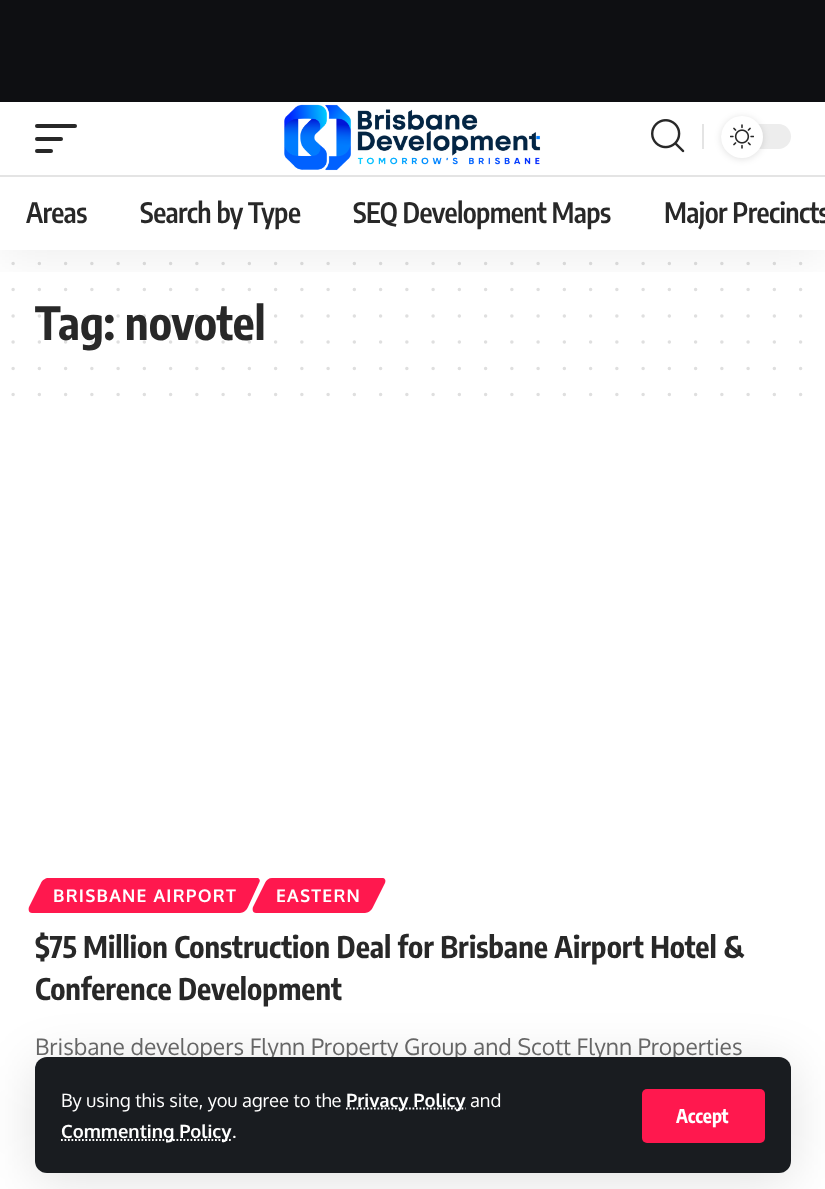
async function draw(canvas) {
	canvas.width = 825;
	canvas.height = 1189;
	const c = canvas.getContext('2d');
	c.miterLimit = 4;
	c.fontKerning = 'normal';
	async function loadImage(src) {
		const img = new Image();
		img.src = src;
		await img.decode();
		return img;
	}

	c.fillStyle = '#fff';
	c.fillRect(0, 0, 825, 1189);
	c.fillStyle = '#0e0f12';
	c.fillRect(0, 0, 825, 102);
	c.beginPath();
	c.moveTo(13.1, 263.4);
	c.lineTo(801, 263.4);
	c.strokeStyle = '#dfdfdf';
	c.lineWidth = 3.5;
	c.lineCap = 'round';
	c.setLineDash([0, 26.25]);
	c.stroke();
	c.beginPath();
	c.moveTo(13.1, 289.6);
	c.lineTo(801, 289.6);
	c.stroke();
	c.font = 'bold 45.5px Encode Sans Condensed';
	c.fillStyle = '#282828';
	c.fillText('Tag: novotel', 35, 340);
	c.beginPath();
	c.moveTo(13.1, 315.9);
	c.lineTo(801, 315.9);
	c.strokeStyle = '#28282826';
	c.stroke();
	c.save();
	c.beginPath();
	c.rect(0, 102, 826, 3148);
	c.clip();
	c.beginPath();
	c.rect(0, 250, 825, 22);
	c.clip();
	c.fillStyle = '#00000012';
	c.filter = 'blur(26px)';
	c.beginPath();
	c.rect(0, 109, 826, 148);
	c.fill();
	c.filter = 'none';
	c.restore();
	c.beginPath();
	c.roundRect(35, 124, 42, 4, 2);
	c.fill();
	c.beginPath();
	c.roundRect(35, 137, 28, 4, 2);
	c.fill();
	c.beginPath();
	c.roundRect(35, 149, 18, 4, 2);
	c.fill();
	c.drawImage(await loadImage('img1.png'), 284, 104, 257, 67);
	c.drawImage(await loadImage('img2.png'), 651, 119, 34, 34);
	c.fillStyle = '#e4e4e4';
	c.fillRect(702, 124, 2, 25);
	c.fillStyle = '#ededed';
	c.beginPath();
	c.roundRect(721, 124, 70, 25, 12.5);
	c.fill();
	c.fillStyle = '#0000001f';
	c.filter = 'blur(3.5px)';
	c.beginPath();
	c.roundRect(721, 117, 42, 42, 21);
	c.fill();
	c.filter = 'none';
	c.fillStyle = '#fff';
	c.beginPath();
	c.arc(742, 137, 21, 0, 2 * Math.PI);
	c.fill();
	c.drawImage(await loadImage('img3.png'), 730, 124, 24, 25);
	c.fillStyle = '#e4e4e4';
	c.fillRect(0, 175, 825, 2);
	c.letterSpacing = '-0.6px';
	c.font = '600 28px Encode Sans Condensed';
	c.fillStyle = '#282828';
	for (const [text, x, y] of [
		['Areas', 26, 223],
		['Search by Type', 140, 223],
		['SEQ Development Maps', 353, 223],
		['Major Precincts', 664, 223],
	]) {
		c.fillText(text, x, y);
	}
	c.fillStyle = '#0000001f';
	c.filter = 'blur(26px)';
	c.beginPath();
	c.roundRect(35, 1064, 756, 116, 12);
	c.fill();
	c.filter = 'none';
	c.letterSpacing = '0px';
	c.font = '22.75px Oxygen';
	c.fillStyle = '#666';
	c.fillText('Brisbane developers Flynn Property Group and Scott Flynn Properties', 35, 1055);
	c.fillStyle = '#191c20';
	c.beginPath();
	c.roundRect(35, 1057, 756, 116, 12);
	c.fill();
	c.font = '18.4px Oxygen';
	c.fillStyle = '#fff';
	c.fillText('By using this site, you agree to the', 61, 1107);
	c.beginPath();
	c.moveTo(346, 1108.5);
	c.lineTo(465.5, 1108.5);
	c.strokeStyle = '#fff';
	c.lineWidth = 1.8;
	c.lineCap = 'butt';
	c.setLineDash([1.75, 1.75]);
	c.stroke();
	c.font = 'bold 18.4px Oxygen';
	c.fillText('Privacy Policy', 346, 1107);
	c.font = '18.4px Oxygen';
	c.fillText('and', 470, 1107);
	c.beginPath();
	c.moveTo(61, 1140);
	c.lineTo(231.5, 1140);
	c.stroke();
	c.font = 'bold 18.4px Oxygen';
	c.fillText('Commenting Policy', 61, 1138);
	c.font = '18.4px Oxygen';
	c.fillText('.', 232, 1138);
	c.fillStyle = '#ff184e';
	c.beginPath();
	c.roundRect(642, 1089, 123, 54, 5);
	c.fill();
	c.font = 'bold 19px Encode Sans Condensed';
	c.fillStyle = '#fff';
	c.fillText('Accept', 676, 1123);
	c.beginPath();
	c.moveTo(13.1, 342.1);
	c.lineTo(801, 342.1);
	c.strokeStyle = '#28282826';
	c.lineWidth = 3.5;
	c.lineCap = 'round';
	c.setLineDash([0, 26.25]);
	c.stroke();
	c.beginPath();
	c.moveTo(13.1, 368.4);
	c.lineTo(801, 368.4);
	c.strokeStyle = '#dfdfdf';
	c.stroke();
	c.beginPath();
	c.moveTo(13.1, 394.6);
	c.lineTo(801, 394.6);
	c.stroke();
	c.fillStyle = '#ff184e';
	c.beginPath();
	c.moveTo(48, 878);
	c.lineTo(257, 878);
	c.bezierCurveTo(259, 878, 261, 880, 259, 883);
	c.lineTo(248, 907);
	c.bezierCurveTo(247, 910, 243, 913, 240, 913);
	c.lineTo(32, 913);
	c.bezierCurveTo(29, 913, 28, 910, 29, 907);
	c.lineTo(41, 883);
	c.bezierCurveTo(42, 880, 46, 878, 48, 878);
	c.closePath();
	c.fill();
	c.letterSpacing = '1.25px';
	c.font = 'bold 17.5px Oxygen';
	c.fillStyle = '#fff';
	c.fillText('BRISBANE AIRPORT', 53, 902);
	c.fillStyle = '#ff184e';
	c.beginPath();
	c.moveTo(272, 878);
	c.lineTo(382, 878);
	c.bezierCurveTo(385, 878, 386, 880, 385, 883);
	c.lineTo(373, 907);
	c.bezierCurveTo(372, 910, 368, 913, 365, 913);
	c.lineTo(256, 913);
	c.bezierCurveTo(253, 913, 252, 910, 253, 907);
	c.lineTo(265, 883);
	c.bezierCurveTo(266, 880, 269, 878, 272, 878);
	c.closePath();
	c.fill();
	c.fillStyle = '#fff';
	c.fillText('EASTERN', 276, 902);
	c.letterSpacing = '0px';
	c.font = 'bold 29.75px Encode Sans Condensed';
	c.fillStyle = '#282828';
	c.fillText('$75 Million Construction Deal for Brisbane Airport Hotel &', 35, 958);
	c.fillText('Conference Development', 35, 1000);
}

draw(document.querySelector('canvas'));
